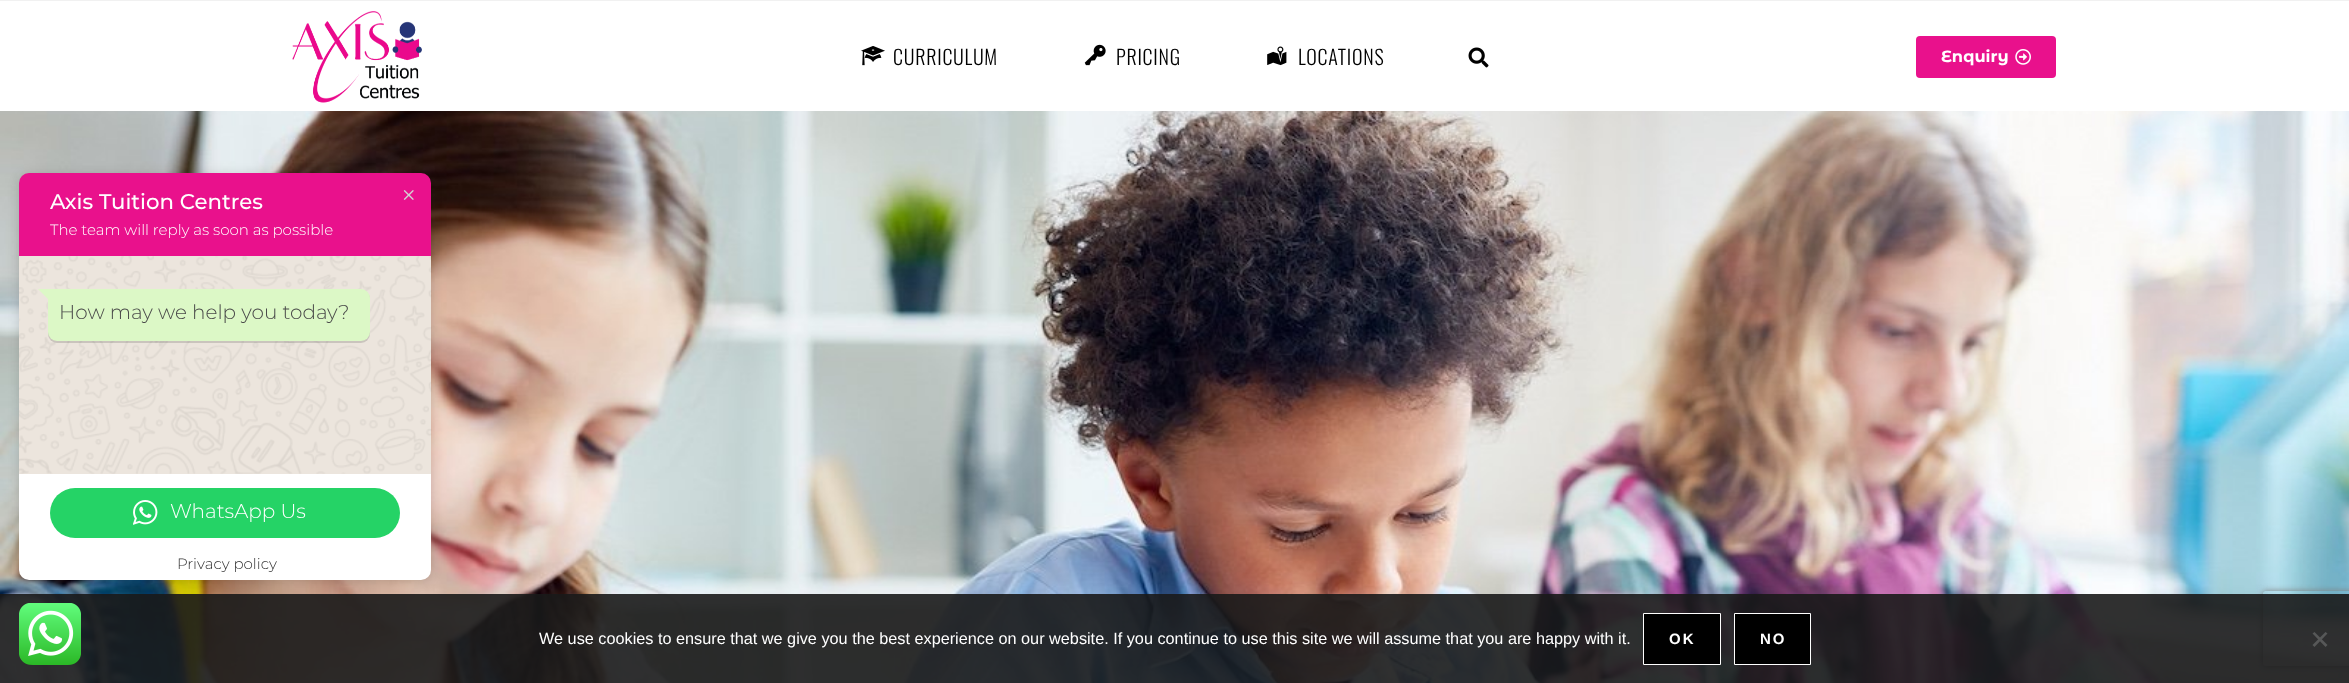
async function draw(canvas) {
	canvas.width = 2349;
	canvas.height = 683;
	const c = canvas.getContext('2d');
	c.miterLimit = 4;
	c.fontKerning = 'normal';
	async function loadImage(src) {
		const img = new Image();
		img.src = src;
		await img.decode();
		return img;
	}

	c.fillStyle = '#f1f1f1';
	c.fillRect(0, 0, 2349, 683);
	c.fillStyle = '#fff';
	c.fillRect(0, 1, 2349, 110);
	c.drawImage(await loadImage('img1.png'), 292, 11, 130, 92);
	c.drawImage(await loadImage('img2.png'), 861, 46, 24, 20);
	c.letterSpacing = '0.75px';
	c.font = '300 20px Oswald';
	c.fillStyle = '#000';
	c.fillText('CURRICULUM', 893, 65);
	c.drawImage(await loadImage('img3.png'), 1084, 44, 22, 22);
	c.fillText('PRICING', 1116, 65);
	c.drawImage(await loadImage('img4.png'), 1267, 46, 20, 20);
	c.fillText('LOCATIONS', 1298, 65);
	c.drawImage(await loadImage('img5.png'), 1468, 47, 21, 21);
	c.fillStyle = '#e9118c';
	c.beginPath();
	c.roundRect(1916, 36, 140, 42, 4);
	c.fill();
	c.letterSpacing = '0px';
	c.font = 'bold 16.25px Montserrat Alternates';
	c.fillStyle = '#fff';
	c.fillText('Enquiry', 1941, 62);
	c.drawImage(await loadImage('img6.png'), 2015, 49, 16, 16);
	c.drawImage(await loadImage('img7.png'), 0, 111, 2349, 572);
	c.save();
	c.beginPath();
	c.moveTo(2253, 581);
	c.lineTo(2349, 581);
	c.lineTo(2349, 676);
	c.lineTo(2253, 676);
	c.closePath();
	c.moveTo(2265.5, 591);
	c.lineTo(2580.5, 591);
	c.bezierCurveTo(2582, 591, 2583, 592, 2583, 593.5);
	c.lineTo(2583, 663.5);
	c.bezierCurveTo(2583, 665, 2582, 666, 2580.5, 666);
	c.lineTo(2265.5, 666);
	c.bezierCurveTo(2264, 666, 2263, 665, 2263, 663.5);
	c.lineTo(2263, 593.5);
	c.bezierCurveTo(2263, 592, 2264, 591, 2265.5, 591);
	c.closePath();
	c.clip('evenodd');
	c.fillStyle = '#808080';
	c.filter = 'blur(3px)';
	c.beginPath();
	c.roundRect(2263, 591, 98, 75, 2.5);
	c.fill();
	c.filter = 'none';
	c.restore();
	c.fillStyle = '#191919e6';
	c.fillRect(0, 594, 2349, 89);
	c.fillStyle = '#00000024';
	c.filter = 'blur(5.5px)';
	c.beginPath();
	c.roundRect(19, 174, 412, 407, 10);
	c.fill();
	c.filter = 'none';
	c.fillStyle = '#e9118c';
	c.beginPath();
	c.roundRect(19, 173, 412, 83, [10, 10, 0, 0]);
	c.fill();
	c.font = '500 21.25px Montserrat';
	c.fillStyle = '#fff';
	c.fillText('Axis Tuition Centres', 50, 209);
	c.font = '300 15px Montserrat';
	c.fillText('The team will reply as soon as possible', 50, 235);
	c.fillStyle = '#ece5dd';
	c.fillRect(19, 256, 412, 218);
	c.drawImage(await loadImage('img8.png'), 19, 256, 413, 218);
	c.fillStyle = '#00000024';
	c.filter = 'blur(0.5px)';
	c.beginPath();
	c.roundRect(48, 290, 322, 53, 9);
	c.fill();
	c.filter = 'none';
	c.fillStyle = '#dcf8c6';
	c.beginPath();
	c.roundRect(48, 289, 322, 52, [0, 9, 9, 9]);
	c.fill();
	c.beginPath();
	c.moveTo(38, 289);
	c.lineTo(48.5, 289);
	c.lineTo(48.5, 299.5);
	c.closePath();
	c.fill();
	c.font = '300 20px Montserrat';
	c.fillStyle = '#4a4a4a';
	c.fillText('How may we help you today?', 59, 319);
	c.fillStyle = '#fff';
	c.fillRect(19, 474, 412, 74);
	c.fillStyle = '#25d366';
	c.beginPath();
	c.roundRect(50, 488, 350, 50, 25);
	c.fill();
	c.drawImage(await loadImage('img9.png'), 133, 500, 25, 25);
	c.fillStyle = '#fff';
	c.fillText('WhatsApp Us', 170, 518);
	c.beginPath();
	c.roundRect(19, 548, 412, 32, [0, 0, 10, 10]);
	c.fill();
	c.font = '300 15px Montserrat';
	c.fillStyle = '#333';
	c.fillText('Privacy policy', 177, 569);
	c.drawImage(await loadImage('img10.png'), 403, 190, 11, 10);
	c.drawImage(await loadImage('img11.png'), 19, 603, 62, 62);
	c.font = '16.25px Liberation Sans';
	c.fillStyle = '#fff';
	c.fillText('We use cookies to ensure that we give you the best experience on our website. If you continue to use this site we will assume that you are happy with it.', 539, 644);
	c.fillStyle = '#000';
	c.beginPath();
	c.rect(1643.5, 613.5, 77, 51);
	c.fill();
	c.strokeStyle = '#fff';
	c.stroke();
	c.letterSpacing = '2px';
	c.font = 'bold 15px Liberation Sans';
	c.fillStyle = '#fff';
	c.fillText('OK', 1669, 644);
	c.fillStyle = '#000';
	c.beginPath();
	c.rect(1734.5, 613.5, 76, 51);
	c.fill();
	c.stroke();
	c.fillStyle = '#fff';
	c.fillText('NO', 1760, 644);
	c.fillStyle = '#575858';
	c.beginPath();
	c.moveTo(2325.5, 632);
	c.lineTo(2327.5, 633.5);
	c.lineTo(2314.5, 647);
	c.lineTo(2312.5, 645);
	c.closePath();
	c.fill();
	c.beginPath();
	c.moveTo(2312.5, 633.5);
	c.lineTo(2314.5, 632);
	c.lineTo(2327.5, 645);
	c.lineTo(2325.5, 647);
	c.closePath();
	c.fill();
}

draw(document.querySelector('canvas'));
